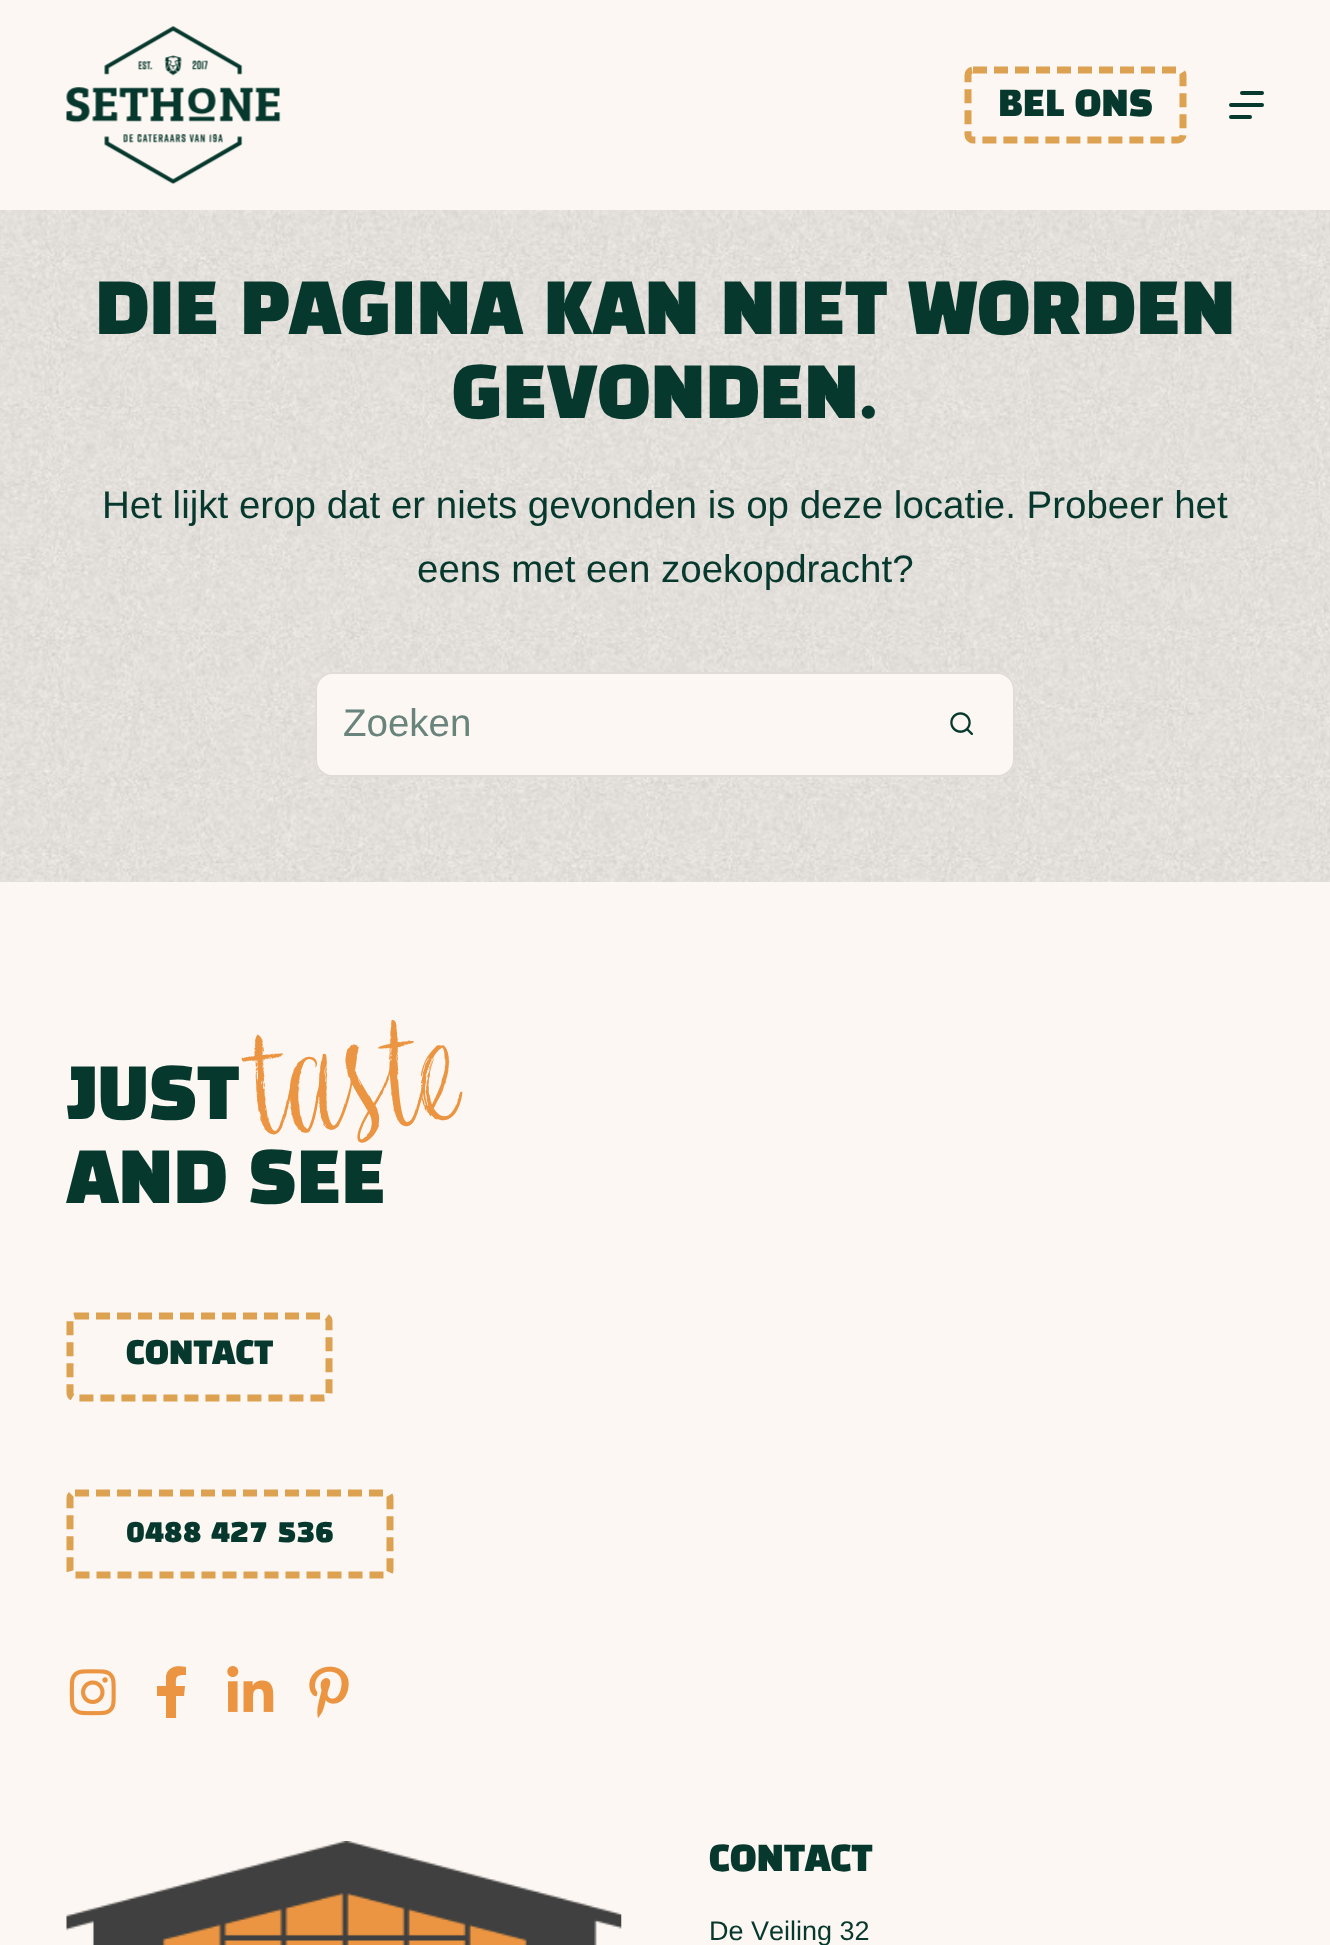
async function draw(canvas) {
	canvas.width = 1330;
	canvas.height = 1945;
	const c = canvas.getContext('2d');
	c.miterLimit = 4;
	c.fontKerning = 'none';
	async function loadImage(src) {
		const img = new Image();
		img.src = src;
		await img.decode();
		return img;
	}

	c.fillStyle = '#fff';
	c.fillRect(0, 0, 1330, 1945);
	c.drawImage(await loadImage('img1.png'), 0, 210, 1330, 672);
	c.fillStyle = '#fcf7f2';
	c.fillRect(0, 0, 1330, 210);
	c.drawImage(await loadImage('img2.png'), 66, 26, 215, 159);
	c.beginPath();
	c.moveTo(973, 70);
	c.lineTo(1178, 70);
	c.bezierCurveTo(1180.5, 70, 1183, 72.5, 1183, 75);
	c.lineTo(1183, 135);
	c.bezierCurveTo(1183, 137.5, 1180.5, 140, 1178, 140);
	c.lineTo(973, 140);
	c.bezierCurveTo(970, 140, 968, 137.5, 968, 135);
	c.lineTo(968, 75);
	c.bezierCurveTo(968, 72.5, 970, 70, 973, 70);
	c.closePath();
	c.strokeStyle = '#dda152';
	c.lineWidth = 7;
	c.setLineDash([14, 7]);
	c.stroke();
	c.font = '900 35px Black Han Sans';
	c.fillStyle = '#06382d';
	c.fillText('BEL ONS', 998, 116);
	c.beginPath();
	c.roundRect(1240, 91, 24, 4, 2);
	c.fill();
	c.beginPath();
	c.roundRect(1229, 103, 35, 4, 2);
	c.fill();
	c.beginPath();
	c.roundRect(1229, 115, 23, 4, 2);
	c.fill();
	c.font = '900 70px Black Han Sans';
	c.fillText('DIE PAGINA KAN NIET WORDEN', 95, 334);
	c.fillText('GEVONDEN.', 452, 418);
	c.font = '38.5px Liberation Sans';
	c.fillText('Het lijkt erop dat er niets gevonden is op deze locatie. Probeer het', 102, 518);
	c.fillText('eens met een zoekopdracht?', 417, 582);
	c.fillStyle = '#fcf7f2';
	c.beginPath();
	c.roundRect(315, 672, 595, 105, [18, 0, 0, 18]);
	c.fill();
	c.fillStyle = '#e0dbd6';
	c.beginPath();
	c.moveTo(332, 672);
	c.lineTo(910, 672);
	c.lineTo(910, 777);
	c.lineTo(332, 777);
	c.bezierCurveTo(323, 777, 315, 769, 315, 760);
	c.lineTo(315, 690);
	c.bezierCurveTo(315, 680, 323, 672, 332, 672);
	c.closePath();
	c.moveTo(332, 674);
	c.lineTo(910, 674);
	c.lineTo(910, 775);
	c.lineTo(332, 775);
	c.bezierCurveTo(324, 775, 317, 768, 317, 760);
	c.lineTo(317, 690);
	c.bezierCurveTo(317, 681, 324, 674, 332, 674);
	c.closePath();
	c.fill('evenodd');
	c.fillStyle = '#68847c';
	c.fillText('Zoeken', 343, 736);
	c.fillStyle = '#fcf7f2';
	c.beginPath();
	c.roundRect(910, 672, 105, 105, [0, 18, 18, 0]);
	c.fill();
	c.fillStyle = '#e0dbd6';
	c.beginPath();
	c.moveTo(910, 672);
	c.lineTo(998, 672);
	c.bezierCurveTo(1007, 672, 1015, 680, 1015, 690);
	c.lineTo(1015, 760);
	c.bezierCurveTo(1015, 769, 1007, 777, 998, 777);
	c.lineTo(910, 777);
	c.closePath();
	c.moveTo(910, 674);
	c.lineTo(998, 674);
	c.bezierCurveTo(1006, 674, 1013, 681, 1013, 690);
	c.lineTo(1013, 760);
	c.bezierCurveTo(1013, 768, 1006, 775, 998, 775);
	c.lineTo(910, 775);
	c.closePath();
	c.fill('evenodd');
	c.drawImage(await loadImage('img3.png'), 950, 712, 23, 23);
	c.fillStyle = '#fcf7f2';
	c.fillRect(0, 882, 1330, 1063);
	c.font = '900 70px Black Han Sans';
	c.fillStyle = '#06382d';
	c.fillText('JUST', 67, 1119);
	c.font = '175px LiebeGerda';
	c.fillStyle = '#eb9542';
	c.save();
	c.translate(248, 1136);
	c.rotate(-5 * Math.PI / 180);
	c.fillText('taste', 0, 0);
	c.restore();
	c.font = '900 70px Black Han Sans';
	c.fillStyle = '#06382d';
	c.fillText('AND SEE', 67, 1203);
	c.beginPath();
	c.moveTo(75, 1316);
	c.lineTo(324, 1316);
	c.bezierCurveTo(326.5, 1316, 329, 1318.5, 329, 1321);
	c.lineTo(329, 1393);
	c.bezierCurveTo(329, 1396, 326.5, 1398, 324, 1398);
	c.lineTo(75, 1398);
	c.bezierCurveTo(72.5, 1398, 70, 1396, 70, 1393);
	c.lineTo(70, 1321);
	c.bezierCurveTo(70, 1318.5, 72.5, 1316, 75, 1316);
	c.closePath();
	c.stroke();
	c.font = '900 31.5px Black Han Sans';
	c.fillText('CONTACT', 126, 1364);
	c.beginPath();
	c.moveTo(75, 1493);
	c.lineTo(385, 1493);
	c.bezierCurveTo(388, 1493, 390, 1495, 390, 1498);
	c.lineTo(390, 1570);
	c.bezierCurveTo(390, 1572.5, 388, 1575, 385, 1575);
	c.lineTo(75, 1575);
	c.bezierCurveTo(72.5, 1575, 70, 1572.5, 70, 1570);
	c.lineTo(70, 1498);
	c.bezierCurveTo(70, 1495, 72.5, 1493, 75, 1493);
	c.closePath();
	c.stroke();
	c.fillText('0488 427 536', 126, 1542);
	c.drawImage(await loadImage('img4.png'), 69, 1669, 47, 47);
	c.fillStyle = '#eb9542';
	c.beginPath();
	c.moveTo(184, 1696);
	c.lineTo(185, 1686);
	c.lineTo(176, 1686);
	c.bezierCurveTo(176, 1677, 175, 1675, 186, 1675);
	c.lineTo(186, 1667);
	c.bezierCurveTo(177, 1665, 168, 1666, 166, 1676);
	c.lineTo(166, 1686);
	c.lineTo(157, 1686);
	c.lineTo(157, 1696);
	c.lineTo(166, 1696);
	c.lineTo(166, 1718);
	c.lineTo(176, 1718);
	c.lineTo(176, 1696);
	c.closePath();
	c.fill();
	c.drawImage(await loadImage('img5.png'), 227, 1666, 47, 46);
	c.drawImage(await loadImage('img6.png'), 309, 1666, 40, 52);
	c.drawImage(await loadImage('img7.png'), 66, 1841, 556, 104);
	c.font = '900 35px Black Han Sans';
	c.fillStyle = '#06382d';
	c.fillText('CONTACT', 709, 1871);
	c.font = '27px Liberation Sans';
	c.fillText('De Veiling 32', 709, 1940);
}

draw(document.querySelector('canvas'));
